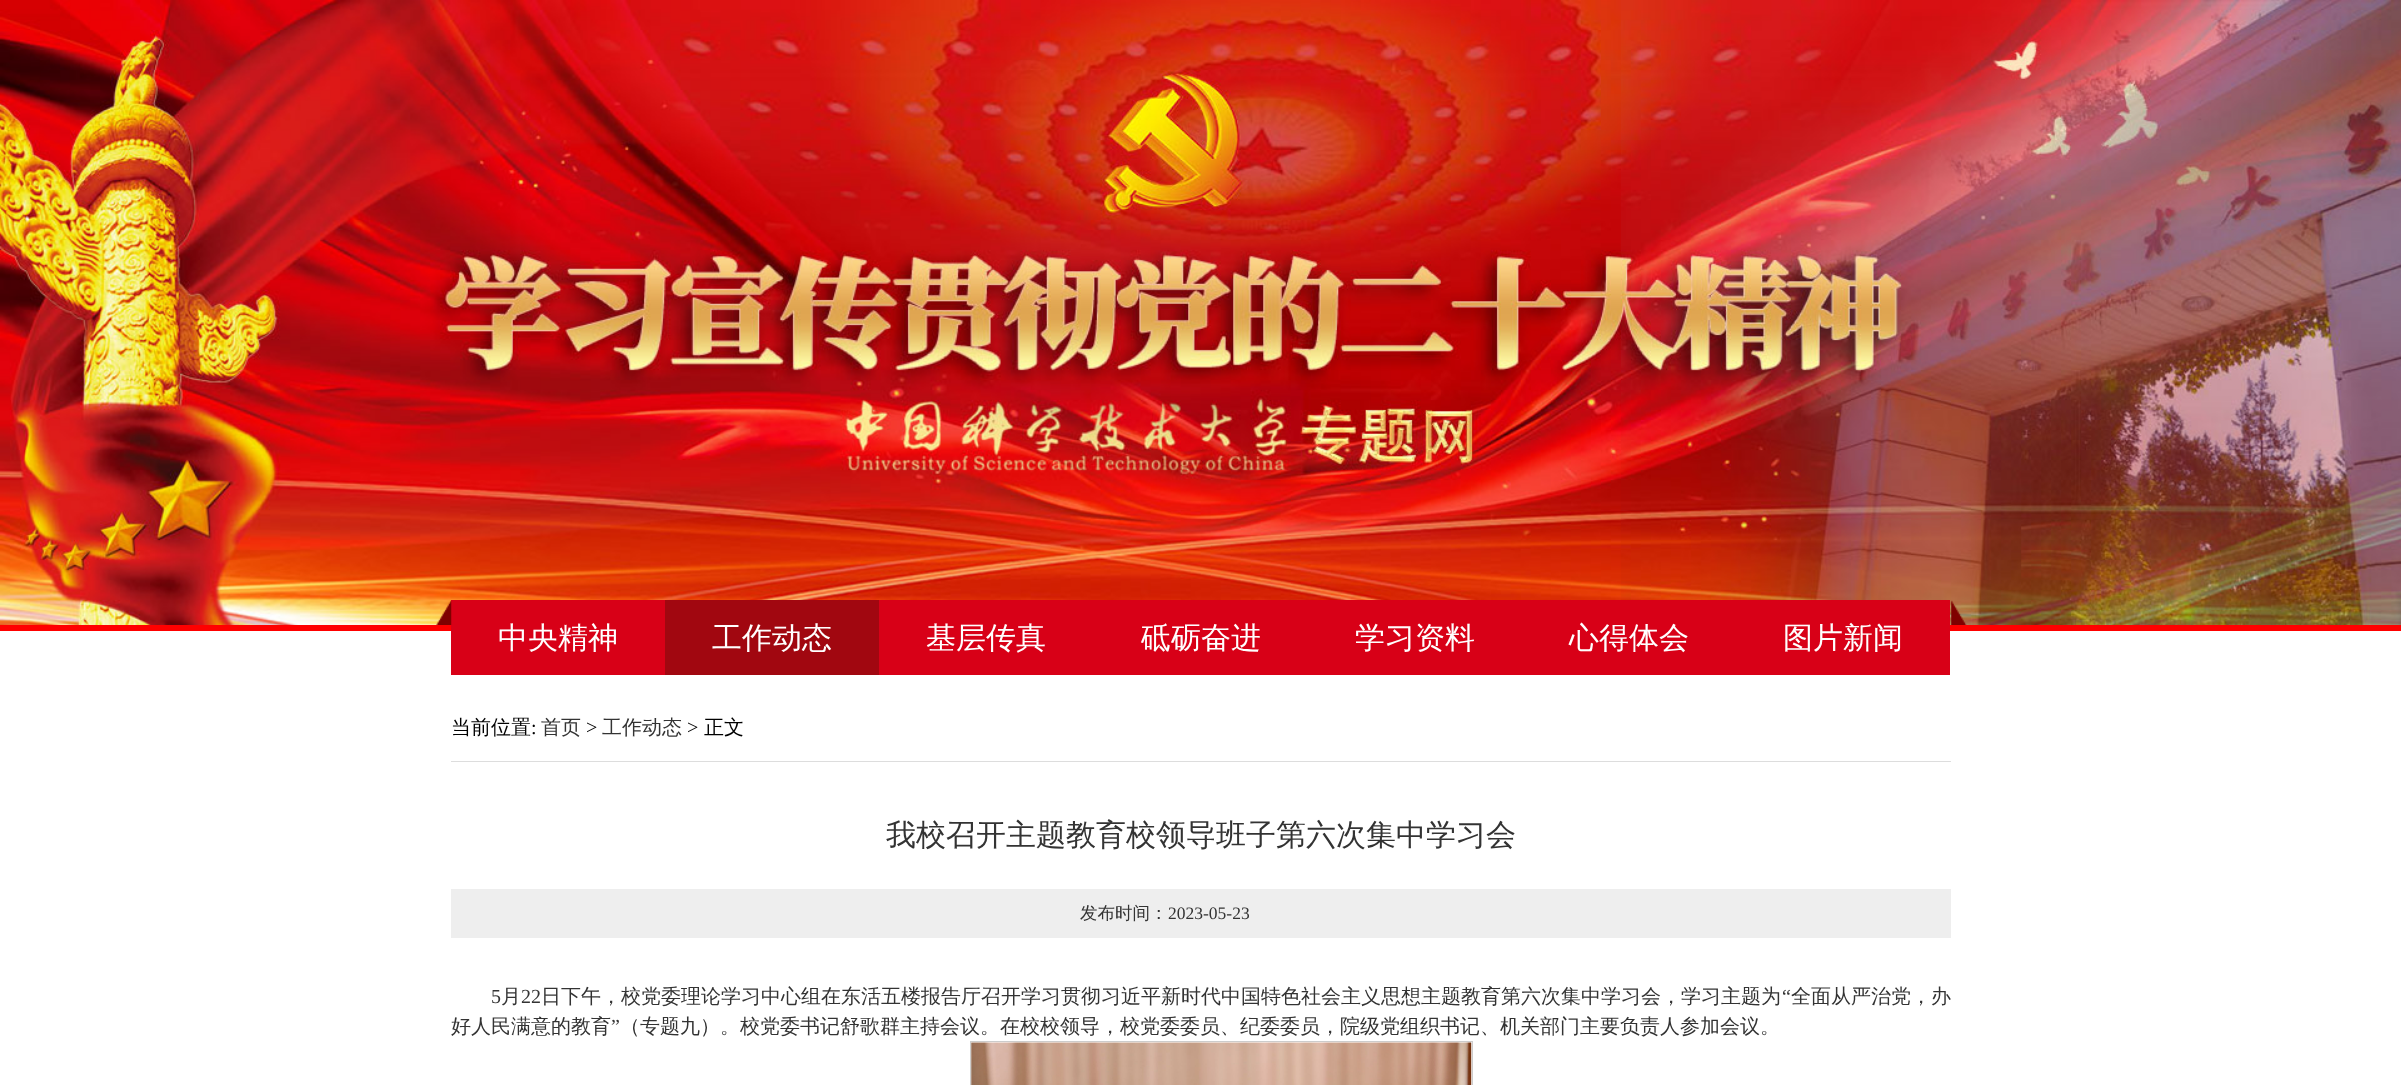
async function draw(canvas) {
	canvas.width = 2401;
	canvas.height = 1085;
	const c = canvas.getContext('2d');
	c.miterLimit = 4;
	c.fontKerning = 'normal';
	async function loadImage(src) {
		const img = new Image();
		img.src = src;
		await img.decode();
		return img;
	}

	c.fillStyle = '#fff';
	c.fillRect(0, 0, 2401, 1085);
	c.drawImage(await loadImage('img1.png'), 0, 0, 2401, 625);
	c.fillStyle = '#f00';
	c.fillRect(0, 625, 2401, 6);
	c.fillStyle = '#d80017';
	c.fillRect(451, 600, 214, 75);
	c.drawImage(await loadImage('img2.png'), 436, 600, 16, 25);
	c.drawImage(await loadImage('img3.png'), 1951, 600, 16, 25);
	c.font = '500 30px WenQuanYi Zen Hei';
	c.fillStyle = '#fff';
	c.fillText('中央精神', 498, 648);
	c.fillStyle = '#a10710';
	c.fillRect(665, 600, 214, 75);
	c.fillStyle = '#fff';
	c.fillText('工作动态', 712, 648);
	c.fillStyle = '#d80017';
	c.fillRect(879, 600, 1071, 75);
	c.fillStyle = '#fff';
	for (const [text, x, y] of [
		['基层传真', 926, 648],
		['砥砺奋进', 1141, 648],
		['学习资料', 1355, 648],
		['心得体会', 1569, 648],
		['图片新闻', 1783, 648],
	]) {
		c.fillText(text, x, y);
	}
	c.fillStyle = '#ddd';
	c.fillRect(451, 761, 1500, 1);
	c.font = '500 20px WenQuanYi Zen Hei';
	c.fillStyle = '#000';
	c.fillText('当前位置', 451, 734);
	c.font = '20px Liberation Serif';
	c.fillText(':', 531, 734);
	c.font = '500 20px WenQuanYi Zen Hei';
	c.fillStyle = '#333';
	c.fillText('首页', 541, 734);
	c.font = '20px Liberation Serif';
	c.fillStyle = '#000';
	c.fillText('>', 586, 734);
	c.font = '500 20px WenQuanYi Zen Hei';
	c.fillStyle = '#333';
	c.fillText('工作动态', 602, 734);
	c.font = '20px Liberation Serif';
	c.fillStyle = '#000';
	c.fillText('>', 687, 734);
	c.font = '500 20px WenQuanYi Zen Hei';
	c.fillText('正文', 704, 734);
	c.font = '500 30px WenQuanYi Zen Hei';
	c.fillStyle = '#333';
	c.fillText('我校召开主题教育校领导班子第六次集中学习会', 886, 845);
	c.fillStyle = '#eee';
	c.fillRect(451, 889, 1500, 49);
	c.font = '500 17.5px WenQuanYi Zen Hei';
	c.fillStyle = '#333';
	c.fillText('发布时间：', 1080, 919);
	c.font = '17.5px Liberation Serif';
	c.fillText('2023-05-23', 1168, 919);
	c.font = '20px Liberation Serif';
	c.fillText('5', 491, 1003);
	c.font = '500 20px WenQuanYi Zen Hei';
	c.fillText('月', 501, 1003);
	c.font = '20px Liberation Serif';
	c.fillText('22', 521, 1003);
	c.font = '500 20px WenQuanYi Zen Hei';
	c.fillText('日下午，校党委理论学习中心组在东活五楼报告厅召开学习贯彻习近平新时代中国特色社会主义思想主题教育第六次集中学习会，学习主题为', 541, 1003);
	c.font = '20px Liberation Serif';
	c.fillText('“', 1782, 1003);
	c.font = '500 20px WenQuanYi Zen Hei';
	c.fillText('全面从严治党，办', 1791, 1003);
	c.fillText('好人民满意的教育', 451, 1033);
	c.font = '20px Liberation Serif';
	c.fillText('”', 611, 1033);
	c.font = '500 20px WenQuanYi Zen Hei';
	c.fillText('（专题九）。校党委书记舒歌群主持会议。在校校领导，校党委委员、纪委委员，院级党组织书记、机关部门主要负责人参加会议。', 620, 1033);
	c.strokeStyle = '#ccc';
	c.strokeRect(970.5, 1041.5, 502, 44);
	c.drawImage(await loadImage('img4.png'), 971, 1042, 501, 43);
}

draw(document.querySelector('canvas'));
